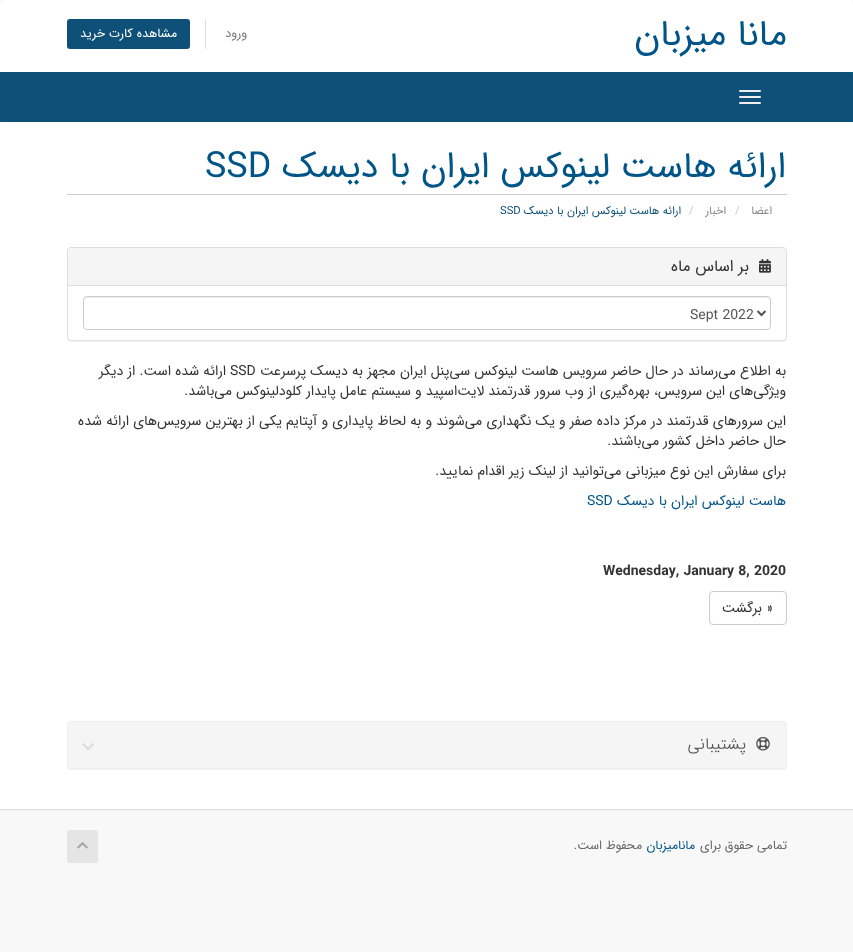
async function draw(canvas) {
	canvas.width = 853;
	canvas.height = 952;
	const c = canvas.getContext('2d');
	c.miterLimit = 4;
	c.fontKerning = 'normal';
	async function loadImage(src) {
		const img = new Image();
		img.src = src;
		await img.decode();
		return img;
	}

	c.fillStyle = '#f8f8f8';
	c.fillRect(0, 0, 853, 952);
	c.fillStyle = '#fff';
	c.beginPath();
	c.roundRect(0, 0, 853, 72, [5, 5, 0, 0]);
	c.fill();
	c.direction = 'rtl';
	c.font = '36.5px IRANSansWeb';
	c.fillStyle = '#058';
	c.fillText('مانا میزبان', 787, 45);
	c.font = '12.5px IRANSansWeb';
	c.fillStyle = '#777';
	c.fillText('ورود', 247, 37);
	c.fillStyle = '#ddd';
	c.fillRect(205, 19, 1, 30);
	c.fillStyle = '#0e5077';
	c.beginPath();
	c.roundRect(67, 19, 123, 30, 3);
	c.fill();
	c.fillStyle = '#fff';
	c.fillText('مشاهده کارت خرید', 177, 37);
	c.fillStyle = '#006687';
	c.fillRect(0, 72, 853, 50);
	c.fillStyle = '#0e5077';
	c.beginPath();
	c.roundRect(0, 72, 853, 50, 4);
	c.fill();
	c.fillStyle = '#eee';
	c.beginPath();
	c.roundRect(739, 90, 22, 2, 1);
	c.fill();
	c.beginPath();
	c.roundRect(739, 96, 22, 2, 1);
	c.fill();
	c.beginPath();
	c.roundRect(739, 102, 22, 2, 1);
	c.fill();
	c.fillStyle = '#fff';
	c.fillRect(0, 122, 853, 687);
	c.fillStyle = '#ccc';
	c.fillRect(67, 194, 720, 1);
	c.font = '36px IRANSansWeb';
	c.fillStyle = '#058';
	c.fillText('ارائه هاست لینوکس ایران با دیسک', 786, 177);
	c.direction = 'ltr';
	c.fillText('SSD', 205, 177);
	c.direction = 'rtl';
	c.font = '11.25px IRANSansWeb';
	c.fillStyle = '#888';
	c.fillText('اعضا', 772, 214);
	c.direction = 'ltr';
	c.fillStyle = '#ccc';
	c.fillText('/', 735, 214);
	c.direction = 'rtl';
	c.fillStyle = '#888';
	c.fillText('اخبار', 726, 214);
	c.direction = 'ltr';
	c.fillStyle = '#ccc';
	c.fillText('/', 689, 214);
	c.direction = 'rtl';
	c.fillStyle = '#0e5077';
	c.fillText('ارائه هاست لینوکس ایران با دیسک', 681, 214);
	c.direction = 'ltr';
	c.fillText('SSD', 500, 214);
	c.fillStyle = '#0000000d';
	c.filter = 'blur(0.5px)';
	c.beginPath();
	c.roundRect(67, 248, 720, 94, 4);
	c.fill();
	c.filter = 'none';
	c.fillStyle = '#fff';
	c.beginPath();
	c.roundRect(67.5, 247.5, 719, 93, 3.5);
	c.fill();
	c.strokeStyle = '#ddd';
	c.stroke();
	c.fillStyle = '#f5f5f5';
	c.beginPath();
	c.roundRect(68, 248, 718, 38, [3, 3, 0, 0]);
	c.fill();
	c.fillStyle = '#ddd';
	c.fillRect(68, 285, 718, 1);
	c.drawImage(await loadImage('img1.png'), 759, 259, 12, 14);
	c.direction = 'rtl';
	c.font = '16px IRANSansWeb';
	c.fillStyle = '#333';
	c.fillText('بر اساس ماه', 749, 271);
	c.fillStyle = '#ececec';
	c.beginPath();
	c.moveTo(87, 298);
	c.lineTo(767, 298);
	c.bezierCurveTo(769, 298, 770, 299, 770, 301);
	c.lineTo(770, 300);
	c.bezierCurveTo(770, 298, 769, 297, 767, 297);
	c.lineTo(87, 297);
	c.bezierCurveTo(85, 297, 84, 298, 84, 300);
	c.lineTo(84, 301);
	c.bezierCurveTo(84, 299, 85, 298, 87, 298);
	c.closePath();
	c.fill();
	c.beginPath();
	c.roundRect(83.5, 296.5, 687, 33, 3.5);
	c.strokeStyle = '#ccc';
	c.stroke();
	c.beginPath();
	c.moveTo(757.5, 311);
	c.lineTo(761.5, 315);
	c.lineTo(765.5, 311);
	c.strokeStyle = '#555';
	c.lineWidth = 2;
	c.stroke();
	c.direction = 'ltr';
	c.font = '14px IRANSansWeb';
	c.fillStyle = '#555';
	c.fillText('Sept 2022', 690, 319);
	c.direction = 'rtl';
	c.fillStyle = '#333';
	c.fillText('به اطلاع می‌رساند در حال حاضر سرویس هاست لینوکس سی‌پنل ایران مجهز به دیسک پرسرعت', 786, 375);
	c.direction = 'ltr';
	c.fillText('SSD', 230, 375);
	c.direction = 'rtl';
	for (const [text, x, y] of [
		['ارائه شده است. از دیگر', 226, 375],
		['ویژگی‌های این سرویس، بهره‌گیری از وب سرور قدرتمند لایت‌اسپید و سیستم عامل پایدار کلودلینوکس می‌باشد.', 786, 395],
		['این سرورهای قدرتمند در مرکز داده صفر و یک نگهداری می‌شوند و به لحاظ پایداری و آپتایم یکی از بهترین سرویس‌های ارائه شده', 786, 425],
		['حال حاضر داخل کشور می‌باشند.', 786, 445],
		['برای سفارش این نوع میزبانی می‌توانید از لینک زیر اقدام نمایید.', 786, 475],
	]) {
		c.fillText(text, x, y);
	}
	c.fillStyle = '#058';
	c.fillText('هاست لینوکس ایران با دیسک', 786, 505);
	c.direction = 'ltr';
	c.fillText('SSD', 587, 505);
	c.font = 'bold 14px IRANSansWeb';
	c.fillStyle = '#333';
	c.fillText('Wednesday, January 8, 2020', 603, 575);
	c.beginPath();
	c.roundRect(709.5, 591.5, 77, 33, 3.5);
	c.strokeStyle = '#ccc';
	c.lineWidth = 1;
	c.stroke();
	c.direction = 'rtl';
	c.font = '14px IRANSansWeb';
	c.fillText('« برگشت', 773, 612);
	c.fillStyle = '#0000000d';
	c.filter = 'blur(0.5px)';
	c.beginPath();
	c.roundRect(67, 722, 720, 48, 4);
	c.fill();
	c.filter = 'none';
	c.beginPath();
	c.roundRect(67.5, 721.5, 719, 47, 3.5);
	c.strokeStyle = '#eee';
	c.stroke();
	c.fillStyle = '#f5f5f5';
	c.beginPath();
	c.roundRect(68, 722, 718, 46, [3, 3, 0, 0]);
	c.fill();
	c.drawImage(await loadImage('img2.png'), 756, 737, 14, 14);
	c.font = '300 16.5px IRANSansWeb';
	c.fillStyle = '#555';
	c.fillText('پشتیبانی', 746, 749);
	c.drawImage(await loadImage('img3.png'), 82, 743, 12, 7);
	c.fillStyle = '#ddd';
	c.fillRect(0, 809, 853, 1);
	c.font = '12.5px IRANSansWeb';
	c.fillStyle = '#666';
	c.fillText('تمامی حقوق برای', 787, 849);
	c.fillStyle = '#058';
	c.fillText('مانامیزبان', 695, 849);
	c.fillStyle = '#666';
	c.fillText('محفوظ است.', 642, 849);
	c.fillStyle = '#e5e5e5';
	c.beginPath();
	c.roundRect(67, 830, 31, 33, 3);
	c.fill();
	c.drawImage(await loadImage('img4.png'), 77, 842, 11, 7);
}

draw(document.querySelector('canvas'));
